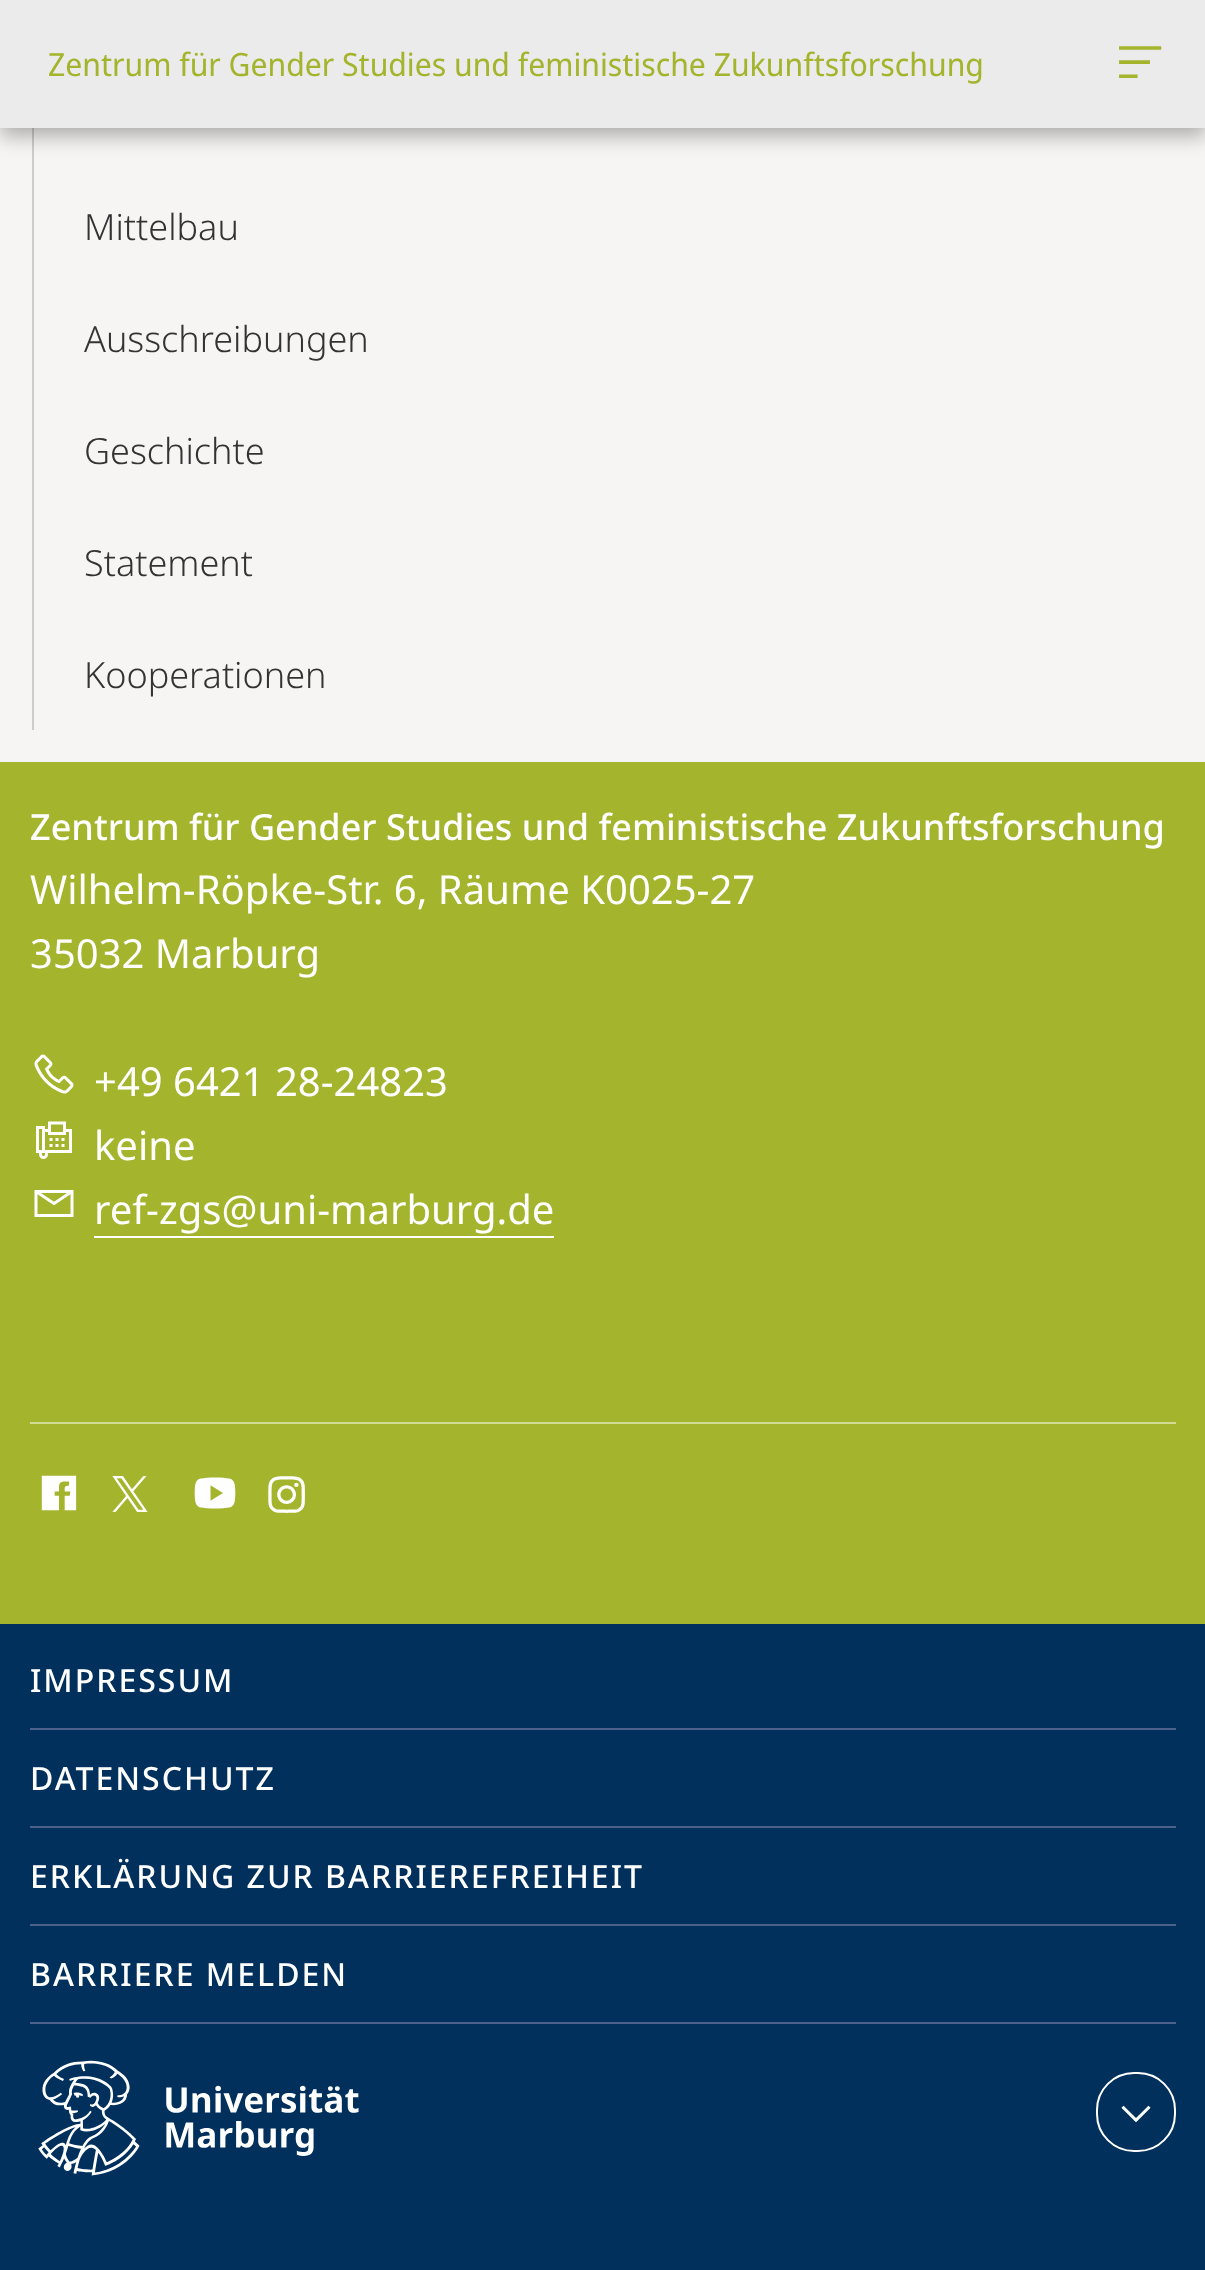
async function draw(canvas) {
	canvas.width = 1205;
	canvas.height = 2270;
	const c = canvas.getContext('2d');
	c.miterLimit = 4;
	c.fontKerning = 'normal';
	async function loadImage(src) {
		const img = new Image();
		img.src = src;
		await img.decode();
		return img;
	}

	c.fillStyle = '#00305b';
	c.fillRect(0, 0, 1205, 2270);
	c.fillStyle = '#f7f5f4';
	c.fillRect(0, 128, 1205, 634);
	c.fillStyle = '#ccc';
	c.fillRect(32, 128, 2, 602);
	c.fillStyle = '#0000004d';
	c.filter = 'blur(10px)';
	c.beginPath();
	c.rect(0, 8, 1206, 128);
	c.fill();
	c.filter = 'none';
	c.fillStyle = '#ebebeb';
	c.fillRect(0, 0, 1205, 128);
	c.font = '32px Noto Sans Display';
	c.fillStyle = '#a4b52d';
	c.fillText('Zentrum für Gender Studies und feministische Zukunftsforschung', 48, 76);
	c.drawImage(await loadImage('img1.png'), 1119, 46, 43, 32);
	c.font = '300 36px Noto Sans';
	c.fillStyle = '#333';
	for (const [text, x, y] of [
		['Mittelbau', 84, 240],
		['Ausschreibungen', 84, 352],
		['Geschichte', 84, 464],
		['Statement', 84, 576],
		['Kooperationen', 84, 688],
	]) {
		c.fillText(text, x, y);
	}
	c.fillStyle = '#a4b52d';
	c.fillRect(0, 762, 1205, 862);
	c.font = '500 36px Noto Sans';
	c.fillStyle = '#fff';
	c.fillText('Zentrum für Gender Studies und feministische Zukunftsforschung', 30, 840);
	c.font = '40px Noto Sans';
	c.fillText('Wilhelm-Röpke-Str. 6, Räume K0025-27', 30, 904);
	c.fillText('35032 Marburg', 30, 968);
	c.drawImage(await loadImage('img2.png'), 34, 1054, 40, 40);
	c.fillText('+49 6421 28-24823', 94, 1096);
	c.drawImage(await loadImage('img3.png'), 36, 1121, 36, 38);
	c.fillText('keine', 94, 1160);
	c.drawImage(await loadImage('img4.png'), 34, 1190, 40, 27);
	c.fillText('ref-zgs@uni-marburg.de', 94, 1224);
	c.fillRect(94, 1236, 460, 2);
	c.fillStyle = '#d2da96';
	c.fillRect(30, 1422, 1146, 2);
	c.drawImage(await loadImage('img5.png'), 41, 1475, 36, 36);
	c.drawImage(await loadImage('img6.png'), 112, 1476, 36, 36);
	c.drawImage(await loadImage('img7.png'), 194, 1477, 42, 32);
	c.drawImage(await loadImage('img8.png'), 268, 1476, 37, 37);
	c.fillStyle = '#4d628b';
	c.fillRect(30, 1728, 1146, 2);
	c.letterSpacing = '2px';
	c.font = '500 32px Noto Sans';
	c.fillStyle = '#fff';
	c.fillText('IMPRESSUM', 30, 1692);
	c.fillStyle = '#4d628b';
	c.fillRect(30, 1826, 1146, 2);
	c.fillStyle = '#fff';
	c.fillText('DATENSCHUTZ', 30, 1790);
	c.fillStyle = '#4d628b';
	c.fillRect(30, 1924, 1146, 2);
	c.fillStyle = '#fff';
	c.fillText('ERKLÄRUNG ZUR BARRIEREFREIHEIT', 30, 1888);
	c.fillStyle = '#4d628b';
	c.fillRect(30, 2022, 1146, 2);
	c.fillStyle = '#fff';
	c.fillText('BARRIERE MELDEN', 30, 1986);
	c.drawImage(await loadImage('img9.png'), 38, 2060, 321, 116);
	c.beginPath();
	c.roundRect(1097, 2073, 78, 78, 37);
	c.strokeStyle = '#fff';
	c.lineWidth = 2;
	c.stroke();
	c.drawImage(await loadImage('img10.png'), 1121, 2105, 30, 18);
}

draw(document.querySelector('canvas'));
